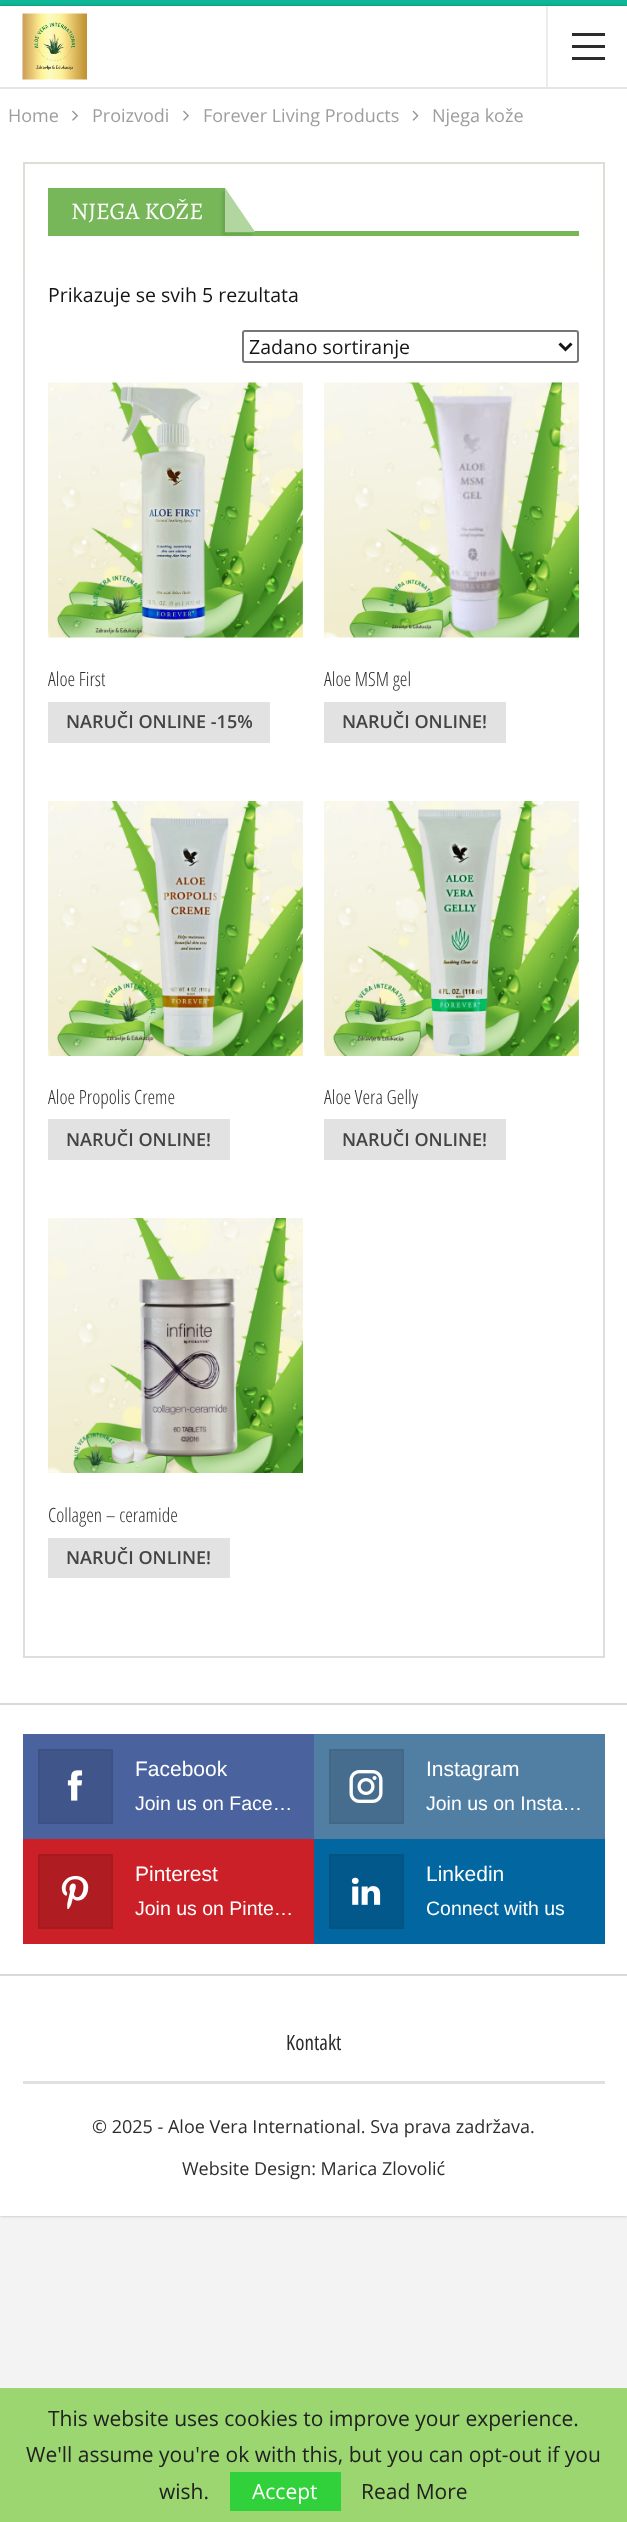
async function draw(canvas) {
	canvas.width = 627;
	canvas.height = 2522;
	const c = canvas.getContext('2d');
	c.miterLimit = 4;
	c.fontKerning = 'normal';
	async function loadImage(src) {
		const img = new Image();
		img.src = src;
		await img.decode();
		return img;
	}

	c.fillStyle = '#f3f3f3';
	c.fillRect(0, 0, 627, 2522);
	c.fillStyle = '#0eb795';
	c.fillRect(0, 0, 627, 6);
	c.fillStyle = '#00000045';
	c.filter = 'blur(1.5px)';
	c.beginPath();
	c.rect(0, 6, 627, 2210);
	c.fill();
	c.filter = 'none';
	c.fillStyle = '#fff';
	c.fillRect(0, 6, 627, 2210);
	c.fillStyle = '#e5e5e5';
	c.fillRect(0, 87, 627, 2);
	c.drawImage(await loadImage('img1.png'), 22, 13, 65, 67);
	for (const [x, y, w, h, color] of [
		[546, 6, 2, 81, '#ededed'],
		[572, 45, 33, 3, '#2c2c2c'],
		[572, 33, 33, 3, '#2c2c2c'],
		[572, 57, 33, 3, '#2c2c2c'],
	]) {
		c.fillStyle = color;
		c.fillRect(x, y, w, h);
	}
	c.font = '18px Open Sans';
	c.fillStyle = '#9e9e9e';
	c.fillText('Home', 8, 122);
	c.drawImage(await loadImage('img2.png'), 72, 110, 6, 11);
	c.fillText('Proizvodi', 92, 122);
	c.drawImage(await loadImage('img2.png'), 183, 110, 6, 11);
	c.fillText('Forever Living Products', 203, 122);
	c.drawImage(await loadImage('img3.png'), 412, 110, 7, 11);
	c.fillText('Njega kože', 432, 122);
	for (const [x, y, w, h, color] of [
		[23, 162, 582, 2, '#deded9'],
		[603, 162, 2, 116, '#deded9'],
		[23, 162, 2, 116, '#deded9'],
		[48, 188, 177, 48, '#77b759'],
		[225, 231, 354, 5, '#77b759'],
	]) {
		c.fillStyle = color;
		c.fillRect(x, y, w, h);
	}
	c.beginPath();
	c.moveTo(255, 232);
	c.lineTo(225, 232);
	c.lineTo(225, 188);
	c.closePath();
	c.fill();
	c.save();
	c.beginPath();
	c.moveTo(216, 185);
	c.lineTo(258, 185);
	c.lineTo(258, 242);
	c.lineTo(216, 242);
	c.closePath();
	c.moveTo(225, 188);
	c.lineTo(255, 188);
	c.lineTo(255, 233);
	c.lineTo(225, 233);
	c.closePath();
	c.clip('evenodd');
	c.fillStyle = '#0000001a';
	c.filter = 'blur(1.5px)';
	c.beginPath();
	c.rect(222, 191, 30, 45);
	c.fill();
	c.filter = 'none';
	c.restore();
	c.fillStyle = '#ffffff6e';
	c.beginPath();
	c.moveTo(255, 232);
	c.lineTo(225, 232);
	c.lineTo(225, 188);
	c.closePath();
	c.fill();
	c.font = '24px Alegreya SC';
	c.fillStyle = '#fff';
	c.fillText('NJEGA KOŽE', 71, 219);
	for (const [x, y, w, h, color] of [
		[603, 278, 2, 1380, '#dedede'],
		[23, 1656, 582, 2, '#dedede'],
		[23, 278, 2, 1380, '#dedede'],
	]) {
		c.fillStyle = color;
		c.fillRect(x, y, w, h);
	}
	c.font = '19.5px Open Sans';
	c.fillStyle = '#141414';
	c.fillText('Prikazuje se svih 5 rezultata', 48, 302);
	c.beginPath();
	c.roundRect(243, 331, 335, 31, 2);
	c.strokeStyle = '#767676';
	c.lineWidth = 2;
	c.stroke();
	c.beginPath();
	c.moveTo(559.5, 343.5);
	c.lineTo(565.5, 349.5);
	c.lineTo(571.5, 343.5);
	c.strokeStyle = '#141414';
	c.lineWidth = 3;
	c.stroke();
	c.fillText('Zadano sortiranje', 249, 354);
	c.drawImage(await loadImage('img4.png'), 48, 382, 255, 256);
	c.font = '300 19.5px Open Sans Condensed';
	c.fillStyle = '#2d2d2d';
	c.fillText('Aloe First', 48, 686);
	c.fillStyle = '#e2e2e2';
	c.fillRect(48, 702, 222, 41);
	c.font = '600 18px Open Sans';
	c.fillStyle = '#444';
	c.fillText('NARUČI ONLINE -15%', 66, 728);
	c.drawImage(await loadImage('img5.png'), 324, 382, 255, 256);
	c.font = '300 19.5px Open Sans Condensed';
	c.fillStyle = '#2d2d2d';
	c.fillText('Aloe MSM gel', 324, 686);
	c.fillStyle = '#e2e2e2';
	c.fillRect(324, 702, 182, 41);
	c.font = '600 18px Open Sans';
	c.fillStyle = '#444';
	c.fillText('NARUČI ONLINE!', 342, 728);
	c.drawImage(await loadImage('img6.png'), 48, 801, 255, 255);
	c.font = '300 19.5px Open Sans Condensed';
	c.fillStyle = '#2d2d2d';
	c.fillText('Aloe Propolis Creme', 48, 1104);
	c.fillStyle = '#e2e2e2';
	c.fillRect(48, 1119, 182, 41);
	c.font = '600 18px Open Sans';
	c.fillStyle = '#444';
	c.fillText('NARUČI ONLINE!', 66, 1146);
	c.drawImage(await loadImage('img7.png'), 324, 801, 255, 255);
	c.font = '300 19.5px Open Sans Condensed';
	c.fillStyle = '#2d2d2d';
	c.fillText('Aloe Vera Gelly', 324, 1104);
	c.fillStyle = '#e2e2e2';
	c.fillRect(324, 1119, 182, 41);
	c.font = '600 18px Open Sans';
	c.fillStyle = '#444';
	c.fillText('NARUČI ONLINE!', 342, 1146);
	c.drawImage(await loadImage('img8.png'), 48, 1218, 255, 255);
	c.font = '300 19.5px Open Sans Condensed';
	c.fillStyle = '#2d2d2d';
	c.fillText('Collagen – ceramide', 48, 1522);
	c.fillStyle = '#e2e2e2';
	c.fillRect(48, 1538, 182, 40);
	c.font = '600 18px Open Sans';
	c.fillStyle = '#444';
	c.fillText('NARUČI ONLINE!', 66, 1564);
	c.fillStyle = '#d9d9d9';
	c.fillRect(0, 1703, 627, 2);
	c.fillStyle = '#4a639f';
	c.fillRect(23, 1734, 291, 105);
	c.fillStyle = '#405589';
	c.beginPath();
	c.rect(39, 1750, 73, 73);
	c.fill();
	c.strokeStyle = '#3d5182';
	c.lineWidth = 2;
	c.stroke();
	c.drawImage(await loadImage('img9.png'), 67, 1770, 16, 31);
	c.font = '21px Liberation Sans';
	c.fillStyle = '#fff';
	c.fillText('Facebook', 135, 1776);
	c.font = '19.5px Liberation Sans';
	c.fillText('Join us on Face…', 135, 1810);
	c.fillStyle = '#517fa4';
	c.fillRect(314, 1734, 291, 105);
	c.fillStyle = '#466d8d';
	c.beginPath();
	c.rect(330, 1750, 73, 73);
	c.fill();
	c.strokeStyle = '#436886';
	c.stroke();
	c.drawImage(await loadImage('img10.png'), 349, 1770, 34, 33);
	c.font = '21px Liberation Sans';
	c.fillStyle = '#fff';
	c.fillText('Instagram', 426, 1776);
	c.font = '19.5px Liberation Sans';
	c.fillText('Join us on Insta…', 426, 1810);
	c.fillStyle = '#cb2027';
	c.fillRect(23, 1839, 291, 105);
	c.fillStyle = '#af1c22';
	c.beginPath();
	c.rect(39, 1855, 73, 73);
	c.fill();
	c.strokeStyle = '#a61b20';
	c.stroke();
	c.drawImage(await loadImage('img11.png'), 61, 1875, 28, 34);
	c.font = '21px Liberation Sans';
	c.fillStyle = '#fff';
	c.fillText('Pinterest', 135, 1881);
	c.font = '19.5px Liberation Sans';
	c.fillText('Join us on Pinte…', 135, 1915);
	c.fillStyle = '#0266a0';
	c.fillRect(314, 1839, 291, 105);
	c.fillStyle = '#02588a';
	c.beginPath();
	c.rect(330, 1855, 73, 73);
	c.fill();
	c.strokeStyle = '#025483';
	c.stroke();
	c.drawImage(await loadImage('img12.png'), 351, 1877, 30, 28);
	c.font = '21px Liberation Sans';
	c.fillStyle = '#fff';
	c.fillText('Linkedin', 426, 1881);
	c.font = '19.5px Liberation Sans';
	c.fillText('Connect with us', 426, 1915);
	c.fillStyle = '#d9d9d9';
	c.fillRect(0, 1974, 627, 2);
	c.fillStyle = '#e0e0e0';
	c.fillRect(23, 2081, 582, 3);
	c.font = '21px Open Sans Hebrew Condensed';
	c.fillStyle = '#2d2d2d';
	c.fillText('Kontakt', 286, 2050);
	c.font = '18px Open Sans';
	c.fillText('© 2025 - Aloe Vera International. Sva prava zadržava.', 92, 2133);
	c.fillText('Website Design: Marica Zlovolić', 182, 2175);
	c.fillStyle = '#9bd671';
	c.fillRect(0, 2388, 627, 134);
	c.font = '21px Open Sans';
	c.fillStyle = '#212121';
	for (const [text, x, y] of [
		['This website uses cookies to improve your experience.', 48, 2426],
		['We\'ll assume you\'re ok with this, but you can opt-out if you', 26, 2462],
		['wish.', 159, 2499],
	]) {
		c.fillText(text, x, y);
	}
	c.fillStyle = '#30d13a';
	c.fillRect(230, 2472, 111, 39);
	c.fillStyle = '#fff';
	c.fillText('Accept', 252, 2499);
	c.fillStyle = '#212121';
	c.fillText('Read More', 361, 2499);
}

draw(document.querySelector('canvas'));
